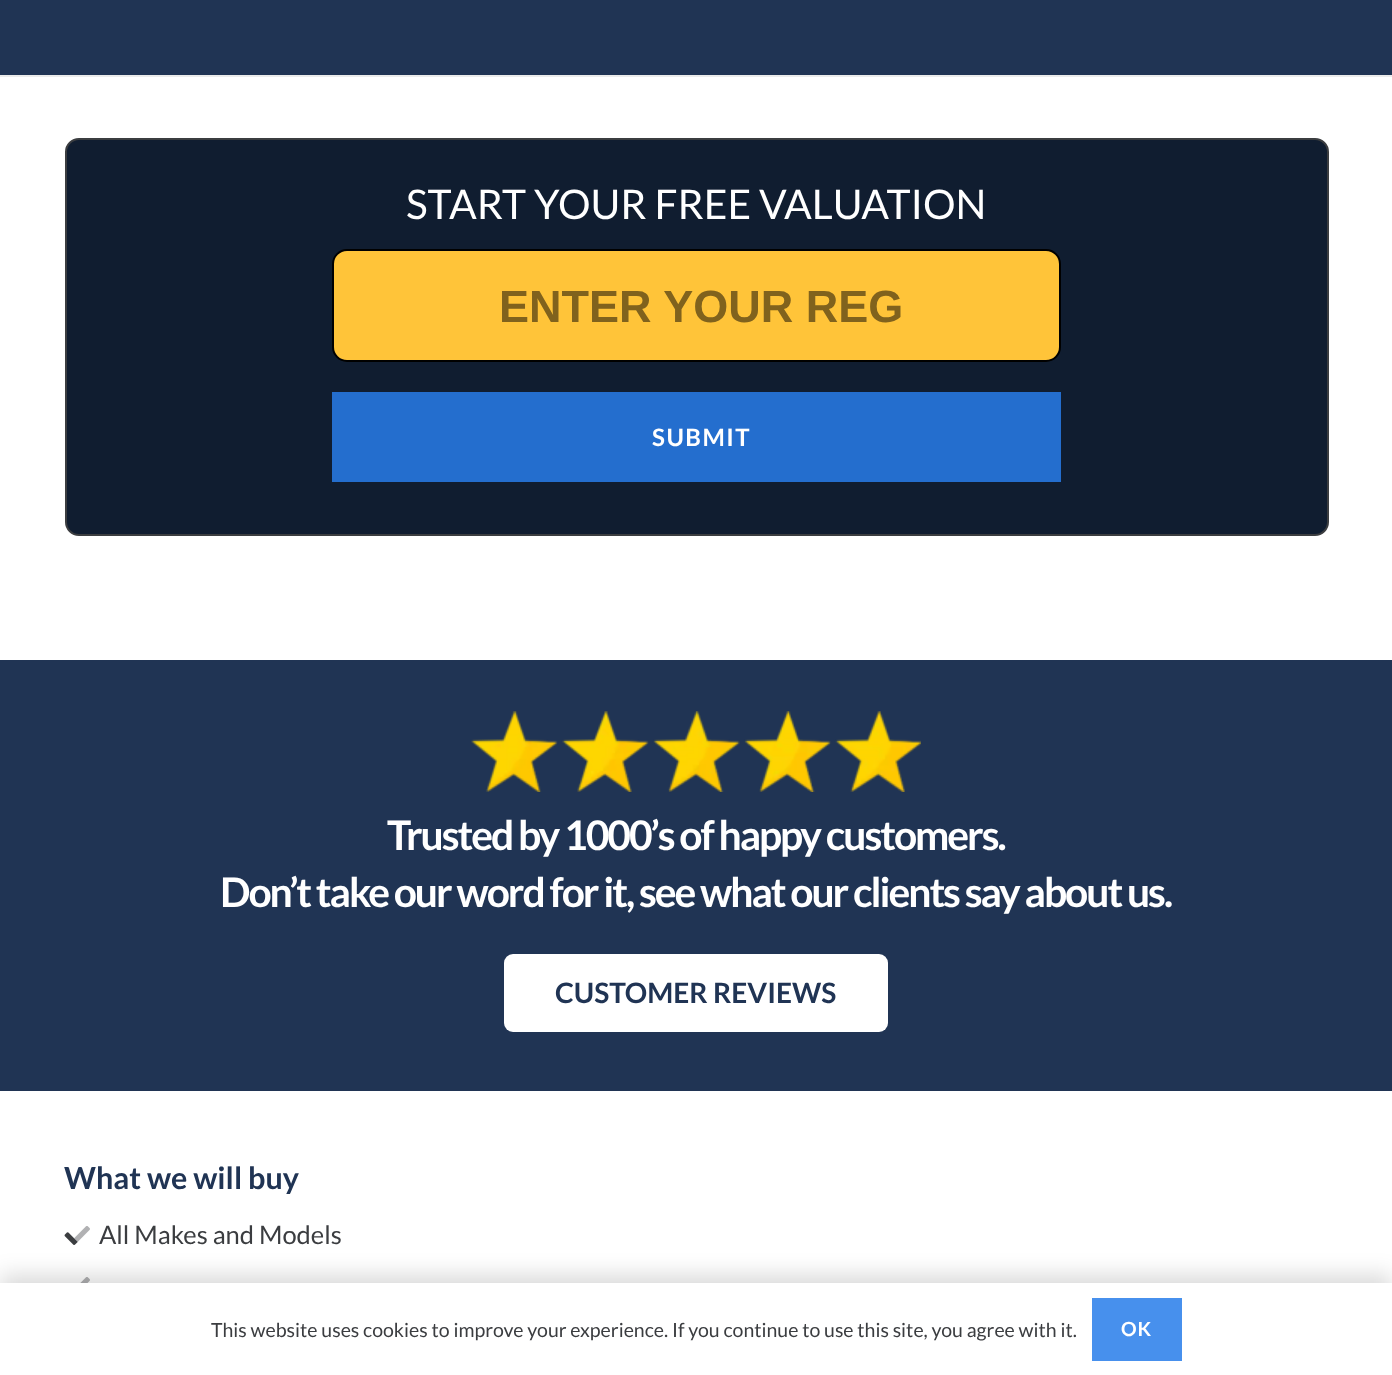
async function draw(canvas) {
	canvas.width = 1392;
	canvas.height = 1375;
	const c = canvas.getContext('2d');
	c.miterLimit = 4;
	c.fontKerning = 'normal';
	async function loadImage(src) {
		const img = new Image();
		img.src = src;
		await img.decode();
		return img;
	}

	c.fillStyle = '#fff';
	c.fillRect(0, 0, 1392, 1375);
	c.fillStyle = '#ebebeb';
	c.fillRect(0, 75, 1392, 2);
	c.fillStyle = '#203454';
	c.fillRect(0, 0, 1392, 75);
	c.fillStyle = '#101d30';
	c.beginPath();
	c.roundRect(66, 139, 1262, 396, 13);
	c.fill();
	c.strokeStyle = '#3b3d40';
	c.lineWidth = 2;
	c.stroke();
	c.font = '40.8px Lato';
	c.fillStyle = '#fff';
	c.fillText('START YOUR FREE VALUATION', 406, 219);
	c.fillStyle = '#ffc439';
	c.beginPath();
	c.roundRect(333, 250, 727, 111, 14);
	c.fill();
	c.strokeStyle = '#000';
	c.stroke();
	c.font = 'bold 45px Liberation Sans';
	c.fillStyle = '#80621d';
	c.fillText('ENTER YOUR REG', 499, 322);
	c.fillStyle = '#246ece';
	c.fillRect(332, 392, 729, 90);
	c.letterSpacing = '1.5px';
	c.font = 'bold 24px Lato';
	c.fillStyle = '#fff';
	c.fillText('SUBMIT', 652, 446);
	c.fillStyle = '#203454';
	c.fillRect(0, 660, 1392, 431);
	c.drawImage(await loadImage('img1.png'), 471, 711, 450, 81);
	c.letterSpacing = '-2.05px';
	c.font = 'bold 40.8px Lato';
	c.fillStyle = '#fff';
	c.fillText('Trusted by 1000’s of happy customers.', 387, 850);
	c.fillText('Don’t take our word for it, see what our clients say about us.', 220, 907);
	c.beginPath();
	c.roundRect(504, 954, 384, 78, 9);
	c.fill();
	c.letterSpacing = '0px';
	c.font = 'bold 28px Lato';
	c.fillStyle = '#203454';
	c.fillText('CUSTOMER REVIEWS', 555, 1003);
	c.font = 'bold 30.5px Lato';
	c.fillText('What we will buy', 64, 1189);
	c.drawImage(await loadImage('img2.png'), 64, 1232, 14, 13);
	c.drawImage(await loadImage('img3.png'), 74, 1226, 16, 16);
	c.font = '25.5px Lato';
	c.fillStyle = '#3b3d40';
	c.fillText('All Makes and Models', 99, 1244);
	c.drawImage(await loadImage('img4.png'), 80, 1277, 10, 6);
	c.fillStyle = '#00000026';
	c.filter = 'blur(11px)';
	c.beginPath();
	c.rect(0, 1275, 1392, 93);
	c.fill();
	c.filter = 'none';
	c.fillStyle = '#fff';
	c.fillRect(0, 1283, 1392, 92);
	c.font = '19.5px Lato';
	c.fillStyle = '#3b3d40';
	c.fillText('This website uses cookies to improve your experience. If you continue to use this site, you agree with it.', 211, 1337);
	c.fillStyle = '#4790ed';
	c.fillRect(1092, 1298, 90, 63);
	c.letterSpacing = '1px';
	c.font = 'bold 19.5px Lato';
	c.fillStyle = '#fff';
	c.fillText('OK', 1121, 1336);
}

draw(document.querySelector('canvas'));
